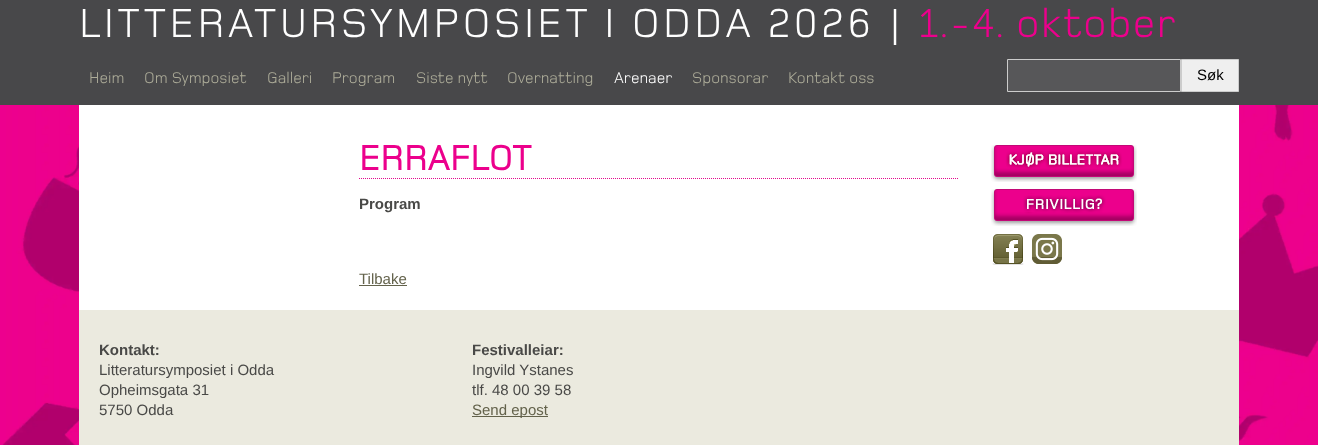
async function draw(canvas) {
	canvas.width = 1318;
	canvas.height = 445;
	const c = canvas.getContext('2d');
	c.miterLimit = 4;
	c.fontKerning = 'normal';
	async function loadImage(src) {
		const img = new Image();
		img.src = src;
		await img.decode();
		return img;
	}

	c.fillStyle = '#fff';
	c.fillRect(0, 0, 1318, 445);
	c.drawImage(await loadImage('img1.png'), 0, 105, 1318, 340);
	c.fillStyle = '#48484a';
	c.fillRect(0, 0, 1318, 105);
	c.letterSpacing = '3.2px';
	c.font = '42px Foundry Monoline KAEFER';
	c.fillStyle = '#fff';
	c.fillText('LITTERATURSYMPOSIET I ODDA 2026', 79, 37);
	c.fillText('|', 889, 37);
	c.letterSpacing = '1.5px';
	c.fillStyle = '#ec008c';
	c.fillText('1.-4. oktober', 919, 37);
	c.letterSpacing = '0px';
	c.font = '16px Foundry Monoline KAEFER';
	c.fillStyle = '#adac99';
	for (const [text, x, y] of [
		['Heim', 89, 83],
		['Om Symposiet', 144, 83],
		['Galleri', 267, 83],
		['Program', 332, 83],
		['Siste nytt', 416, 83],
		['Overnatting', 507, 83],
	]) {
		c.fillText(text, x, y);
	}
	c.fillStyle = '#fff';
	c.fillText('Arenaer', 614, 83);
	c.fillStyle = '#adac99';
	c.fillText('Sponsorar', 692, 83);
	c.fillText('Kontakt oss', 788, 83);
	c.fillStyle = '#575759';
	c.beginPath();
	c.rect(1007.5, 59.5, 173, 32);
	c.fill();
	c.strokeStyle = '#ccc';
	c.stroke();
	c.fillStyle = '#efefef';
	c.beginPath();
	c.rect(1181.5, 59.5, 57, 32);
	c.fill();
	c.stroke();
	c.font = '15px Liberation Sans';
	c.fillStyle = '#000';
	c.fillText('Søk', 1197, 80);
	c.fillStyle = '#fff';
	c.fillRect(79, 105, 1160, 205);
	c.beginPath();
	c.moveTo(359, 178.5);
	c.lineTo(959, 178.5);
	c.strokeStyle = '#e3088e';
	c.setLineDash([1, 1]);
	c.stroke();
	c.letterSpacing = '0.25px';
	c.font = 'bold 36px Foundry Monoline KAEFER';
	c.fillStyle = '#ec008c';
	c.fillText('ERRAFLOT', 359, 170);
	c.letterSpacing = '0px';
	c.font = 'bold 15px Liberation Sans';
	c.fillStyle = '#494947';
	c.fillText('Program', 359, 209);
	c.font = '15px Liberation Sans';
	c.fillStyle = '#63624b';
	c.fillText('Tilbake', 359, 284);
	c.fillRect(359, 285, 48, 1);
	c.drawImage(await loadImage('img2.png'), 991, 145, 146, 37);
	c.drawImage(await loadImage('img3.png'), 991, 189, 146, 37);
	c.drawImage(await loadImage('img4.png'), 992, 234, 32, 31);
	c.drawImage(await loadImage('img5.png'), 1032, 234, 30, 30);
	c.fillStyle = '#ebeadf';
	c.fillRect(79, 310, 1160, 135);
	c.font = 'bold 15px Liberation Sans';
	c.fillStyle = '#494947';
	c.fillText('Kontakt:', 99, 355);
	c.font = '15px Liberation Sans';
	for (const [text, x, y] of [
		['Litteratursymposiet i Odda', 99, 375],
		['Opheimsgata 31', 99, 395],
		['5750 Odda', 99, 415],
	]) {
		c.fillText(text, x, y);
	}
	c.font = 'bold 15px Liberation Sans';
	c.fillText('Festivalleiar:', 472, 355);
	c.font = '15px Liberation Sans';
	c.fillText('Ingvild Ystanes', 472, 375);
	c.fillText('tlf. 48 00 39 58', 472, 395);
	c.fillStyle = '#63624b';
	c.fillRect(472, 416, 76, 1);
	c.fillText('Send epost', 472, 415);
}

draw(document.querySelector('canvas'));
